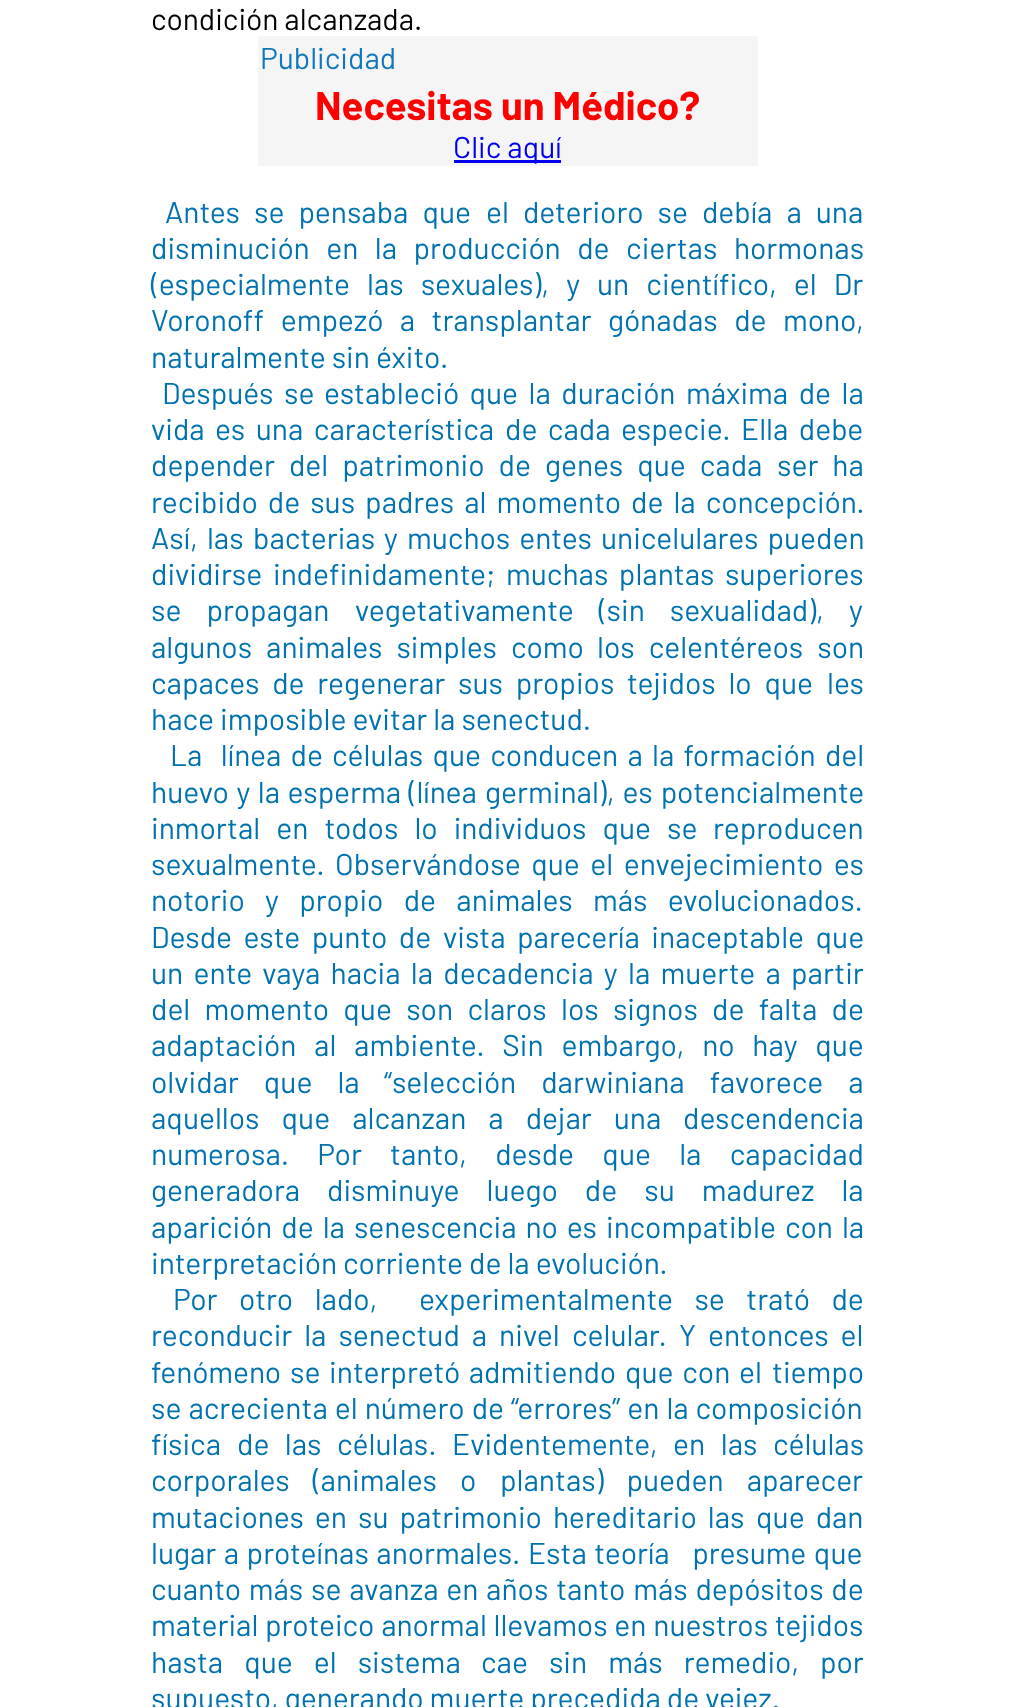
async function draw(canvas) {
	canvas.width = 1015;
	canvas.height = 1707;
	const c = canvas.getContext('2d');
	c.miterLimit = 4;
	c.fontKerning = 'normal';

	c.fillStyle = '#fff';
	c.fillRect(0, 0, 1015, 1707);
	c.font = '30px Barlow';
	c.fillStyle = '#000';
	c.fillText('condición alcanzada.', 151, 30);
	c.fillStyle = '#f5f5f5';
	c.fillRect(258, 36, 500, 130);
	c.fillStyle = '#1077bb';
	c.fillText('Publicidad', 260, 69);
	c.font = 'bold 40px Barlow';
	c.fillStyle = '#f00';
	c.fillText('Necesitas un Médico?', 315, 120);
	c.fillStyle = '#00e';
	c.fillRect(454, 160, 107, 3);
	c.font = '30px Barlow';
	c.fillText('Clic aquí', 453, 158);
	c.wordSpacing = '8px';
	c.fillStyle = '#0072af';
	c.fillText('Antes se pensaba que', 165, 223);
	c.fillText('el deterioro se debía a una', 486, 223);
	c.wordSpacing = '10.5px';
	c.fillText('disminución en la producción de ciertas', 151, 259);
	c.wordSpacing = '0px';
	c.fillText('hormonas', 734, 259);
	c.wordSpacing = '11px';
	c.fillText('(especialmente las sexuales), y un científico, el Dr', 151, 295);
	c.wordSpacing = '10.5px';
	c.fillText('Voronoff empezó a transplantar gónadas de mono,', 151, 331);
	c.wordSpacing = '0px';
	c.fillText('naturalmente sin éxito.', 151, 368);
	c.wordSpacing = '4.5px';
	for (const [text, x, y] of [
		['Después se', 162, 404],
		['estableció que la duración máxima de la', 324, 404],
		['vida es una característica', 151, 440],
		['de cada especie. Ella debe', 505, 440],
	]) {
		c.fillText(text, x, y);
	}
	c.wordSpacing = '8px';
	c.fillText('depender del patrimonio de genes que cada', 151, 476);
	c.fillText('ser ha', 777, 476);
	c.wordSpacing = '4px';
	c.fillText('recibido de sus padres al momento de la concepción.', 151, 513);
	c.wordSpacing = '3px';
	c.fillText('Así, las', 151, 549);
	c.fillText('bacterias y muchos entes unicelulares pueden', 253, 549);
	c.wordSpacing = '0px';
	c.fillText('dividirse', 151, 585);
	c.wordSpacing = '4.5px';
	c.fillText('indefinidamente; muchas plantas superiores', 273, 585);
	c.wordSpacing = '19px';
	c.fillText('se propagan', 151, 621);
	c.fillText('vegetativamente (sin sexualidad), y', 355, 621);
	c.wordSpacing = '8px';
	c.fillText('algunos animales simples como', 151, 658);
	c.fillText('los celentéreos son', 597, 658);
	c.wordSpacing = '6.75px';
	c.fillText('capaces de regenerar sus propios tejidos lo que', 151, 694);
	c.wordSpacing = '0px';
	c.fillText('les', 827, 694);
	c.fillText('hace imposible evitar la senectud.', 151, 730);
	c.wordSpacing = '3.25px';
	c.fillText('La  línea de', 170, 766);
	c.fillText('células que conducen a la formación del', 332, 766);
	c.wordSpacing = '1.5px';
	c.fillText('huevo y la esperma (línea', 151, 803);
	c.wordSpacing = '2px';
	c.fillText('germinal), es potencialmente', 485, 803);
	c.wordSpacing = '10px';
	c.fillText('inmortal en todos lo individuos que se', 151, 839);
	c.wordSpacing = '0px';
	c.fillText('reproducen', 713, 839);
	c.wordSpacing = '4.5px';
	c.fillText('sexualmente. Observándose que el envejecimiento es', 151, 875);
	c.wordSpacing = '14.25px';
	c.fillText('notorio y propio de animales más evolucionados.', 151, 911);
	c.wordSpacing = '5.5px';
	c.fillText('Desde este punto de', 151, 948);
	c.fillText('vista parecería inaceptable que', 443, 948);
	c.wordSpacing = '4.25px';
	c.fillText('un ente vaya hacia la decadencia y', 151, 984);
	c.fillText('la muerte a partir', 628, 984);
	c.wordSpacing = '8.25px';
	c.fillText('del momento que son claros los signos de falta de', 151, 1020);
	c.wordSpacing = '11.75px';
	c.fillText('adaptación al ambiente. Sin embargo, no hay que', 151, 1056);
	c.wordSpacing = '19px';
	c.fillText('olvidar que la', 151, 1093);
	c.fillText('“selección darwiniana favorece a', 384, 1093);
	c.wordSpacing = '16px';
	c.fillText('aquellos que alcanzan a dejar una', 151, 1129);
	c.wordSpacing = '0px';
	c.fillText('descendencia', 683, 1129);
	c.wordSpacing = '22.25px';
	c.fillText('numerosa. Por tanto, desde que la capacidad', 151, 1165);
	c.wordSpacing = '0px';
	c.fillText('generadora', 151, 1201);
	c.wordSpacing = '21px';
	c.fillText('disminuye luego de su madurez la', 327, 1201);
	c.wordSpacing = '3px';
	c.fillText('aparición de la senescencia no es', 151, 1238);
	c.fillText('incompatible con la', 606, 1238);
	c.wordSpacing = '0px';
	c.fillText('interpretación corriente de la evolución.', 151, 1274);
	c.wordSpacing = '15.5px';
	c.fillText('Por otro lado,', 173, 1310);
	c.fillText('experimentalmente se trató de', 419, 1310);
	c.wordSpacing = '6px';
	c.fillText('reconducir la senectud a nivel', 151, 1346);
	c.fillText('celular. Y entonces el', 572, 1346);
	c.wordSpacing = '2.75px';
	c.fillText('fenómeno se interpretó admitiendo que con el', 151, 1383);
	c.wordSpacing = '0px';
	c.fillText('tiempo', 772, 1383);
	c.wordSpacing = '1px';
	c.fillText('se acrecienta el número de “errores” en la composición', 151, 1419);
	c.wordSpacing = '0px';
	c.fillText('física', 151, 1455);
	c.wordSpacing = '9.5px';
	c.fillText('de las células. Evidentemente, en las células', 237, 1455);
	c.wordSpacing = '17px';
	c.fillText('corporales (animales o', 151, 1491);
	c.fillText('plantas) pueden aparecer', 500, 1491);
	c.wordSpacing = '5px';
	c.fillText('mutaciones en su patrimonio hereditario las', 151, 1528);
	c.fillText('que dan', 756, 1528);
	c.wordSpacing = '1.5px';
	c.fillText('lugar a proteínas anormales. Esta teoría   presume que', 151, 1564);
	c.wordSpacing = '1.75px';
	c.fillText('cuanto más se avanza en años tanto más depósitos de', 151, 1600);
	c.wordSpacing = '0px';
	c.fillText('material', 151, 1636);
	c.wordSpacing = '0.75px';
	c.fillText('proteico anormal llevamos en nuestros tejidos', 265, 1636);
	c.wordSpacing = '15px';
	c.fillText('hasta que el sistema', 151, 1673);
	c.fillText('cae sin más remedio, por', 481, 1673);
	c.wordSpacing = '0px';
	c.fillText('supuesto, generando muerte precedida de vejez.', 151, 1709);
}

draw(document.querySelector('canvas'));
